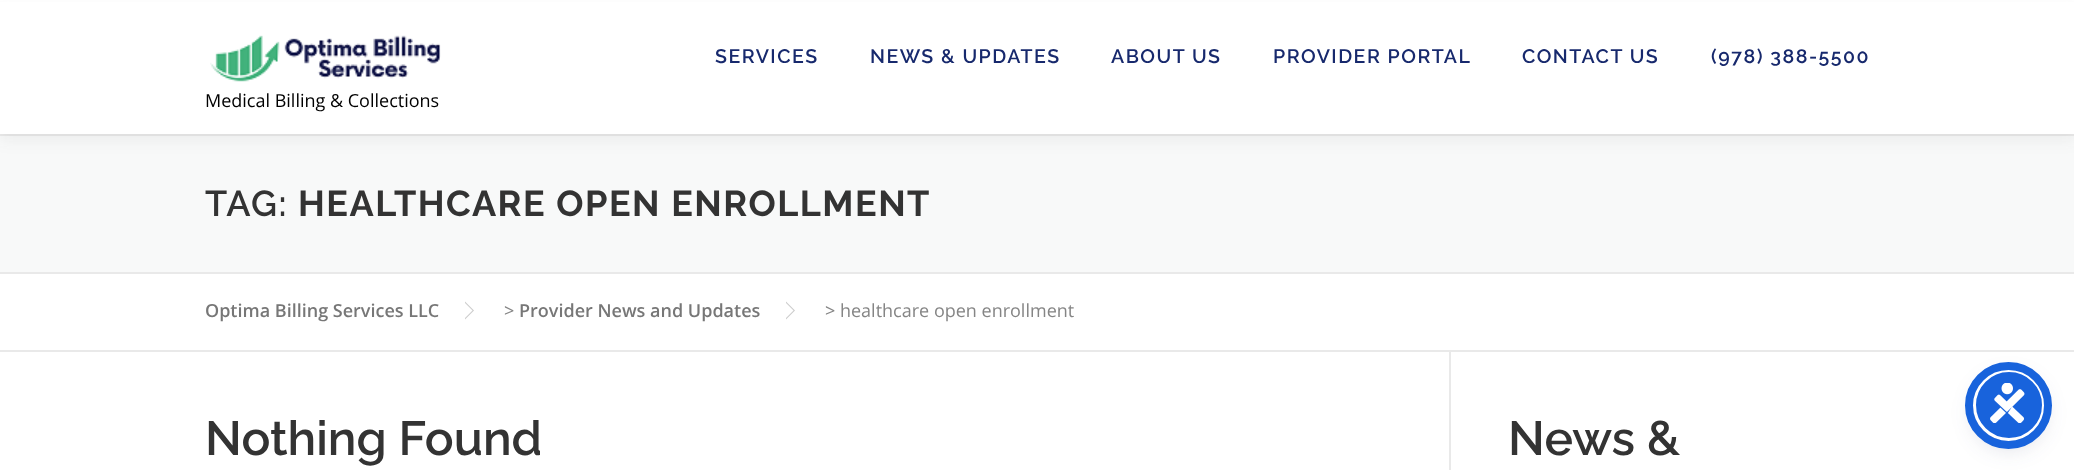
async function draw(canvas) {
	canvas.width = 2074;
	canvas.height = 470;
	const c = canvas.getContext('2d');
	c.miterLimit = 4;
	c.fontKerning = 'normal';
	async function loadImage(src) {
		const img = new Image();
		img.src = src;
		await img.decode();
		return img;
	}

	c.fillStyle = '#fff';
	c.fillRect(0, 0, 2074, 470);
	c.fillStyle = '#f8f9f9';
	c.fillRect(0, 136, 2074, 136);
	c.fillStyle = '#e9e9e9';
	c.fillRect(0, 134, 2074, 2);
	c.fillStyle = '#3232320f';
	c.filter = 'blur(7.5px)';
	c.beginPath();
	c.rect(0, 8, 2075, 133);
	c.fill();
	c.filter = 'none';
	c.fillStyle = '#fff';
	c.fillRect(0, 2, 2074, 132);
	c.letterSpacing = '1.5px';
	c.font = '600 19.5px Raleway';
	c.fillStyle = '#17296d';
	for (const [text, x, y] of [
		['SERVICES', 715, 63],
		['NEWS & UPDATES', 870, 63],
		['ABOUT US', 1111, 63],
		['PROVIDER PORTAL', 1273, 63],
		['CONTACT US', 1522, 63],
		['(978) 388-5500', 1711, 63],
	]) {
		c.fillText(text, x, y);
	}
	c.drawImage(await loadImage('img1.png'), 210, 35, 231, 47);
	c.letterSpacing = '0px';
	c.font = '18px Open Sans';
	c.fillStyle = '#000';
	c.fillText('Medical Billing & Collections', 205, 107);
	c.fillStyle = '#e9e9e9';
	c.fillRect(0, 272, 2074, 2);
	c.letterSpacing = '1.5px';
	c.font = '600 36px Raleway';
	c.fillStyle = '#333';
	c.fillText('TAG:', 205, 216);
	c.font = 'bold 36px Raleway';
	c.fillText('HEALTHCARE OPEN ENROLLMENT', 298, 216);
	c.fillStyle = '#e9e9e9';
	c.fillRect(0, 350, 2074, 2);
	c.letterSpacing = '0px';
	c.font = '600 18px Open Sans';
	c.fillStyle = '#777';
	c.fillText('Optima Billing Services LLC', 205, 317);
	c.fillStyle = '#ccc';
	c.beginPath();
	c.moveTo(465, 319.5);
	c.lineTo(465, 301.5);
	c.lineTo(474, 310.5);
	c.closePath();
	c.fill();
	c.fillStyle = '#fff';
	c.beginPath();
	c.moveTo(465, 318);
	c.lineTo(465, 303);
	c.lineTo(472.5, 310.5);
	c.closePath();
	c.fill();
	c.font = '18px Open Sans';
	c.fillStyle = '#858585';
	c.fillText('>', 504, 317);
	c.font = '600 18px Open Sans';
	c.fillStyle = '#777';
	c.fillText('Provider News and Updates', 519, 317);
	c.fillStyle = '#ccc';
	c.beginPath();
	c.moveTo(786, 319.5);
	c.lineTo(786, 301.5);
	c.lineTo(795, 310.5);
	c.closePath();
	c.fill();
	c.fillStyle = '#fff';
	c.beginPath();
	c.moveTo(786, 318);
	c.lineTo(786, 303);
	c.lineTo(793.5, 310.5);
	c.closePath();
	c.fill();
	c.font = '18px Open Sans';
	c.fillStyle = '#858585';
	c.fillText('> healthcare open enrollment', 825, 317);
	c.fillStyle = '#e9e9e9';
	c.fillRect(1449, 351, 2, 119);
	c.font = '600 48px Raleway';
	c.fillStyle = '#333';
	c.fillText('Nothing Found', 205, 455);
	c.fillText('News &', 1508, 455);
	c.fillStyle = '#5d649433';
	c.filter = 'blur(3px)';
	c.beginPath();
	c.roundRect(1973, 372, 72, 72, 36);
	c.fill();
	c.filter = 'none';
	c.fillStyle = '#252c6126';
	c.filter = 'blur(11px)';
	c.beginPath();
	c.roundRect(1973, 377, 72, 72, 36);
	c.fill();
	c.filter = 'none';
	c.fillStyle = '#1863dc';
	c.beginPath();
	c.arc(2009, 405, 34.5, 0, 2 * Math.PI);
	c.fill();
	c.strokeStyle = '#fff';
	c.lineWidth = 3;
	c.stroke();
	c.beginPath();
	c.arc(2008.5, 405.5, 39.5, 0, 2 * Math.PI);
	c.strokeStyle = '#1863dc';
	c.lineWidth = 8;
	c.stroke();
	c.drawImage(await loadImage('img2.png'), 1990, 383, 35, 40);
}

draw(document.querySelector('canvas'));
